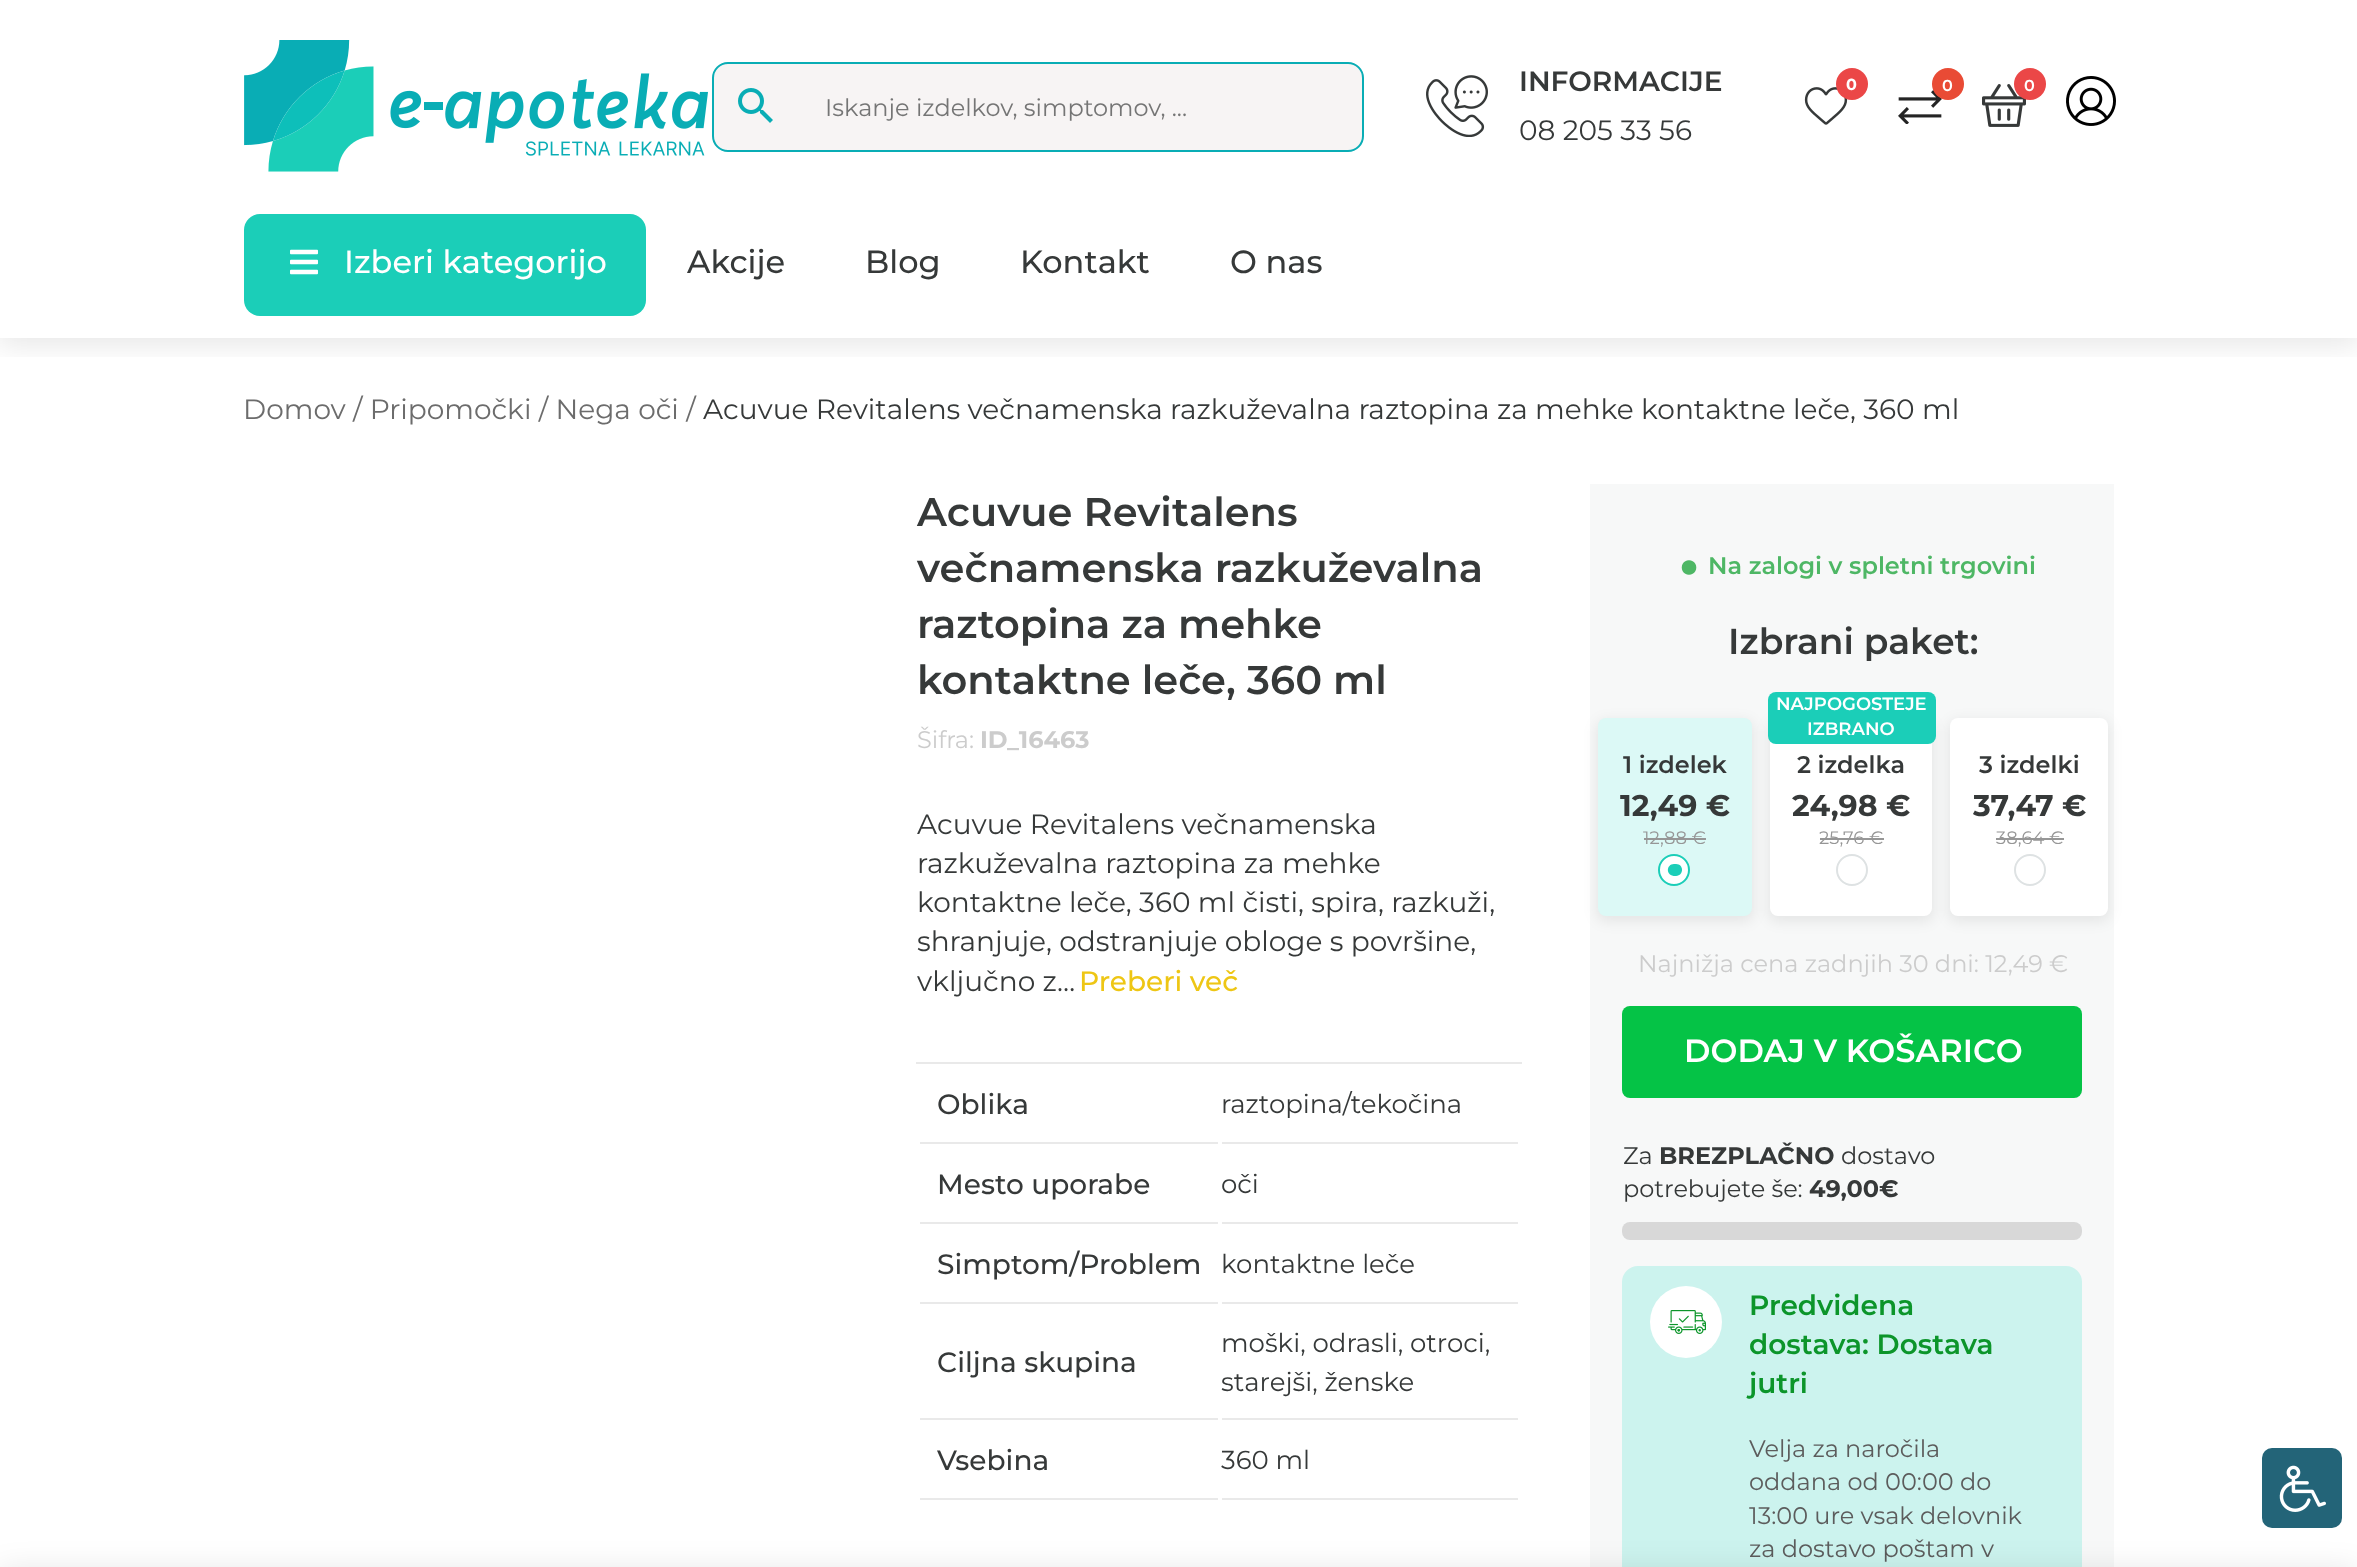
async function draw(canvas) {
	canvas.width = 2357;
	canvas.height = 1567;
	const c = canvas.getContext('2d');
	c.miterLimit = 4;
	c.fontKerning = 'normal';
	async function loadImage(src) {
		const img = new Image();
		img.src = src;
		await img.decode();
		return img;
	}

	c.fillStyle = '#fff';
	c.fillRect(0, 0, 2357, 1567);
	c.save();
	c.beginPath();
	c.rect(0, 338, 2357, 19);
	c.clip();
	c.fillStyle = '#0000001a';
	c.filter = 'blur(15px)';
	c.beginPath();
	c.rect(-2, 2, 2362, 342);
	c.fill();
	c.filter = 'none';
	c.restore();
	c.drawImage(await loadImage('img1.png'), 244, 40, 464, 132);
	c.drawImage(await loadImage('img2.png'), 1426, 75, 62, 62);
	c.font = '100 28px Montserrat';
	c.fillStyle = '#363939';
	c.fillText('INFORMACIJE', 1519, 91);
	c.font = '100 28px "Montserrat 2"';
	c.fillText('08 205 33 56', 1519, 140);
	c.drawImage(await loadImage('img3.png'), 1804, 87, 44, 38);
	c.fillStyle = '#eb4747';
	c.beginPath();
	c.arc(1852, 84, 16, 0, 2 * Math.PI);
	c.fill();
	c.font = '100 16px "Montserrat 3"';
	c.fillStyle = '#fff';
	c.fillText('0', 1846, 90);
	c.drawImage(await loadImage('img4.png'), 1898, 90, 44, 34);
	c.fillStyle = '#e94b35';
	c.beginPath();
	c.arc(1948, 84, 16, 0, 2 * Math.PI);
	c.fill();
	c.font = '100 16px Montserrat';
	c.fillStyle = '#fff';
	c.fillText('0', 1942, 91);
	c.drawImage(await loadImage('img5.png'), 1982, 84, 44, 43);
	c.fillStyle = '#eb4747';
	c.beginPath();
	c.arc(2030, 84, 16, 0, 2 * Math.PI);
	c.fill();
	c.fillStyle = '#fff';
	c.fillText('0', 2024, 91);
	c.drawImage(await loadImage('img6.png'), 2066, 76, 50, 50);
	c.fillStyle = '#f7f4f4';
	c.beginPath();
	c.roundRect(713, 63, 650, 88, 15);
	c.fill();
	c.strokeStyle = '#09adb5';
	c.lineWidth = 2;
	c.stroke();
	c.drawImage(await loadImage('img7.png'), 738, 88, 35, 35);
	c.font = '100 24px "Montserrat 2"';
	c.fillStyle = '#757575';
	c.fillText('Iskanje izdelkov, simptomov, ...', 825, 116);
	c.fillStyle = '#1bceb8';
	c.beginPath();
	c.roundRect(244, 214, 402, 102, 16);
	c.fill();
	c.drawImage(await loadImage('img8.png'), 290, 249, 28, 26);
	c.font = '100 32px "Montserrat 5"';
	c.fillStyle = '#fff';
	c.fillText('Izberi kategorijo', 344, 273);
	c.fillStyle = '#363939';
	for (const [text, x, y] of [
		['Akcije', 687, 273],
		['Blog', 865, 273],
		['Kontakt', 1020, 273],
		['O nas', 1230, 273],
	]) {
		c.fillText(text, x, y);
	}
	c.font = '100 28px "Montserrat 2"';
	c.fillStyle = '#6c6c6c';
	c.fillText('Domov / Pripomočki / Nega oči /', 243, 419);
	c.fillStyle = '#363939';
	c.fillText('Acuvue Revitalens večnamenska razkuževalna raztopina za mehke kontaktne leče, 360 ml', 703, 419);
	c.font = '100 40px Montserrat';
	for (const [text, x, y] of [
		['Acuvue Revitalens', 917, 526],
		['večnamenska razkuževalna', 917, 582],
		['raztopina za mehke', 917, 638],
		['kontaktne leče, 360 ml', 917, 694],
	]) {
		c.fillText(text, x, y);
	}
	c.font = '100 24px "Montserrat 2"';
	c.fillStyle = '#ccc';
	c.fillText('Šifra:', 917, 748);
	c.font = '100 24px "Montserrat 3"';
	c.fillText('ID_16463', 980, 748);
	c.font = '100 28px "Montserrat 2"';
	c.fillStyle = '#363939';
	for (const [text, x, y] of [
		['Acuvue Revitalens večnamenska', 917, 834],
		['razkuževalna raztopina za mehke', 917, 873],
		['kontaktne leče, 360 ml čisti, spira, razkuži,', 917, 912],
		['shranjuje, odstranjuje obloge s površine,', 917, 951],
		['vključno z…', 917, 991],
	]) {
		c.fillText(text, x, y);
	}
	c.font = '100 28px "Montserrat 5"';
	c.fillStyle = '#eec614';
	c.fillText('Preberi več', 1079, 991);
	c.fillStyle = '#e9e9e9';
	c.fillRect(916, 1062, 606, 2);
	c.fillRect(920, 1142, 298, 2);
	c.fillStyle = '#363939';
	c.fillText('Oblika', 937, 1114);
	c.fillStyle = '#e9e9e9';
	c.fillRect(1222, 1142, 296, 2);
	c.font = '100 26px "Montserrat 2"';
	c.fillStyle = '#363939';
	c.fillText('raztopina/tekočina', 1221, 1113);
	c.fillStyle = '#e9e9e9';
	c.fillRect(920, 1222, 298, 2);
	c.font = '100 28px "Montserrat 5"';
	c.fillStyle = '#363939';
	c.fillText('Mesto uporabe', 937, 1194);
	c.fillStyle = '#e9e9e9';
	c.fillRect(1222, 1222, 296, 2);
	c.font = '100 26px "Montserrat 2"';
	c.fillStyle = '#363939';
	c.fillText('oči', 1221, 1193);
	c.fillStyle = '#e9e9e9';
	c.fillRect(920, 1302, 298, 2);
	c.font = '100 28px "Montserrat 5"';
	c.fillStyle = '#363939';
	c.fillText('Simptom/Problem', 937, 1274);
	c.fillStyle = '#e9e9e9';
	c.fillRect(1222, 1302, 296, 2);
	c.font = '100 26px "Montserrat 2"';
	c.fillStyle = '#363939';
	c.fillText('kontaktne leče', 1221, 1273);
	c.fillStyle = '#e9e9e9';
	c.fillRect(920, 1418, 298, 2);
	c.font = '100 28px "Montserrat 5"';
	c.fillStyle = '#363939';
	c.fillText('Ciljna skupina', 937, 1372);
	c.fillStyle = '#e9e9e9';
	c.fillRect(1222, 1418, 296, 2);
	c.font = '100 26px "Montserrat 2"';
	c.fillStyle = '#363939';
	c.fillText('moški, odrasli, otroci,', 1221, 1352);
	c.fillText('starejši, ženske', 1221, 1391);
	c.fillStyle = '#e9e9e9';
	c.fillRect(920, 1498, 298, 2);
	c.font = '100 28px "Montserrat 5"';
	c.fillStyle = '#363939';
	c.fillText('Vsebina', 937, 1470);
	c.fillStyle = '#e9e9e9';
	c.fillRect(1222, 1498, 296, 2);
	c.font = '100 26px "Montserrat 2"';
	c.fillStyle = '#363939';
	c.fillText('360 ml', 1221, 1469);
	c.fillStyle = '#f7f8f8';
	c.fillRect(1590, 484, 524, 1083);
	c.font = '100 44px "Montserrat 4"';
	c.fillStyle = '#4eb765';
	c.fillText('•', 1680, 580);
	c.font = '100 24px Montserrat';
	c.fillText('Na zalogi v spletni trgovini', 1708, 574);
	c.font = '100 36px Montserrat';
	c.fillStyle = '#363939';
	c.fillText('Izbrani paket:', 1728, 654);
	c.fillStyle = '#00000012';
	c.filter = 'blur(6.5px)';
	c.beginPath();
	c.roundRect(1596, 720, 158, 202, 10);
	c.fill();
	c.filter = 'none';
	c.fillStyle = '#dcf9f6';
	c.beginPath();
	c.roundRect(1598, 718, 154, 198, 8);
	c.fill();
	c.font = '100 24px Montserrat';
	c.fillStyle = '#363939';
	c.fillText('1 izdelek', 1623, 773);
	c.font = '100 30px "Montserrat 3"';
	c.fillText('12,49 €', 1620, 816);
	c.font = '100 18px "Montserrat 2"';
	c.fillStyle = '#969696';
	c.fillText('12,88 €', 1643, 844);
	c.fillRect(1644, 838, 62, 2);
	c.fillStyle = '#fff';
	c.beginPath();
	c.arc(1674, 870, 15, 0, 2 * Math.PI);
	c.fill();
	c.strokeStyle = '#1bceb8';
	c.stroke();
	c.fillStyle = '#1bceb8';
	c.beginPath();
	c.moveTo(1674, 864);
	c.bezierCurveTo(1666, 864, 1665, 876.5, 1676, 876);
	c.bezierCurveTo(1684, 875.5, 1684, 864, 1676, 864);
	c.closePath();
	c.fill();
	c.fillStyle = '#00000012';
	c.filter = 'blur(6.5px)';
	c.beginPath();
	c.roundRect(1768, 720, 166, 202, 10);
	c.fill();
	c.filter = 'none';
	c.fillStyle = '#fff';
	c.beginPath();
	c.roundRect(1770, 718, 162, 198, 8);
	c.fill();
	c.fillStyle = '#1bceb8';
	c.beginPath();
	c.roundRect(1768, 692, 168, 52, 8);
	c.fill();
	c.font = '100 18px Montserrat';
	c.fillStyle = '#fff';
	c.fillText('NAJPOGOSTEJE', 1776, 710);
	c.fillText('IZBRANO', 1807, 735);
	c.font = '100 24px Montserrat';
	c.fillStyle = '#363939';
	c.fillText('2 izdelka', 1797, 773);
	c.font = '100 30px "Montserrat 3"';
	c.fillText('24,98 €', 1792, 816);
	c.font = '100 18px "Montserrat 2"';
	c.fillStyle = '#969696';
	c.fillText('25,76', 1819, 844);
	c.fillRect(1820, 838, 50, 2);
	c.fillText('€', 1869, 844);
	c.fillRect(1870, 838, 14, 2);
	c.beginPath();
	c.arc(1852, 870, 15, 0, 2 * Math.PI);
	c.strokeStyle = '#dee2e3';
	c.stroke();
	c.fillStyle = '#00000012';
	c.filter = 'blur(6.5px)';
	c.beginPath();
	c.roundRect(1948, 720, 162, 202, 10);
	c.fill();
	c.filter = 'none';
	c.fillStyle = '#fff';
	c.beginPath();
	c.roundRect(1950, 718, 158, 198, 8);
	c.fill();
	c.font = '100 24px Montserrat';
	c.fillStyle = '#363939';
	c.fillText('3 izdelki', 1979, 773);
	c.font = '100 30px "Montserrat 3"';
	c.fillText('37,47 €', 1973, 816);
	c.font = '100 18px "Montserrat 2"';
	c.fillStyle = '#969696';
	c.fillText('38,64 €', 1996, 844);
	c.fillRect(1996, 838, 68, 2);
	c.beginPath();
	c.arc(2030, 870, 15, 0, 2 * Math.PI);
	c.stroke();
	c.font = '100 24px "Montserrat 2"';
	c.fillStyle = '#ccc';
	c.fillText('Najnižja cena zadnjih 30 dni: 12,49 €', 1638, 972);
	c.fillStyle = '#05c346';
	c.beginPath();
	c.roundRect(1622, 1006, 460, 92, 8);
	c.fill();
	c.font = '100 32px Montserrat';
	c.fillStyle = '#fff';
	c.fillText('DODAJ V KOŠARICO', 1684, 1062);
	c.font = '100 24px "Montserrat 2"';
	c.fillStyle = '#363939';
	c.fillText('Za', 1623, 1164);
	c.font = '100 24px "Montserrat 3"';
	c.fillText('BREZPLAČNO', 1659, 1164);
	c.font = '100 24px "Montserrat 2"';
	c.fillText('dostavo', 1841, 1164);
	c.fillText('potrebujete še:', 1623, 1197);
	c.font = '100 24px "Montserrat 3"';
	c.fillText('49,00€', 1809, 1197);
	c.fillStyle = '#d8d8d8';
	c.beginPath();
	c.roundRect(1622, 1222, 460, 18, 8);
	c.fill();
	c.fillStyle = '#ccf3ee';
	c.beginPath();
	c.roundRect(1622, 1266, 460, 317, 16);
	c.fill();
	c.fillStyle = '#fff';
	c.beginPath();
	c.arc(1686, 1322, 36, 0, 2 * Math.PI);
	c.fill();
	c.drawImage(await loadImage('img9.png'), 1668, 1310, 38, 24);
	c.font = '100 28px Montserrat';
	c.fillStyle = '#0c952a';
	for (const [text, x, y] of [
		['Predvidena', 1749, 1315],
		['dostava: Dostava', 1749, 1354],
		['jutri', 1749, 1393],
	]) {
		c.fillText(text, x, y);
	}
	c.font = '100 24px "Montserrat 2"';
	c.fillStyle = '#5c5c5c';
	for (const [text, x, y] of [
		['Velja za naročila', 1749, 1457],
		['oddana od 00:00 do', 1749, 1490],
		['13:00 ure vsak delovnik', 1749, 1524],
		['za dostavo poštam v', 1749, 1557],
	]) {
		c.fillText(text, x, y);
	}
	c.fillStyle = '#236478';
	c.beginPath();
	c.roundRect(2262, 1448, 80, 80, 10);
	c.fill();
	c.fillStyle = '#0000001a';
	c.filter = 'blur(15px)';
	c.beginPath();
	c.roundRect(-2, 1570, 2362, 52, 10);
	c.fill();
	c.filter = 'none';
	c.drawImage(await loadImage('img10.png'), 2279, 1465, 47, 47);
}

draw(document.querySelector('canvas'));
